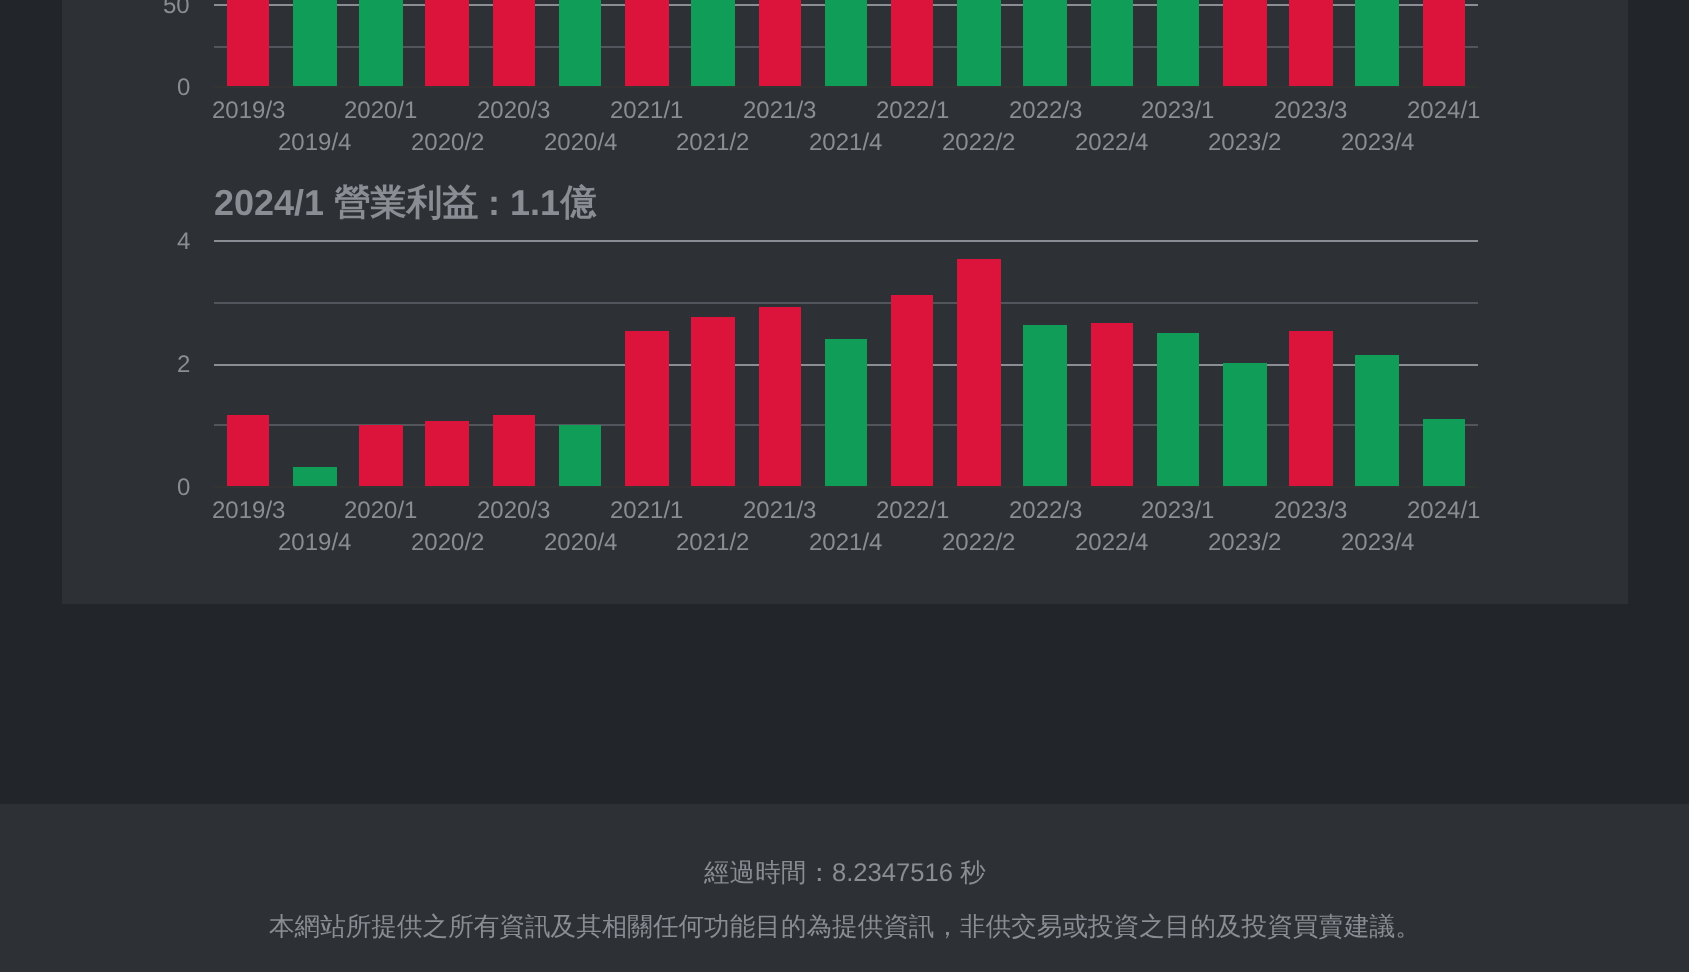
async function draw(canvas) {
	canvas.width = 1689;
	canvas.height = 972;
	const c = canvas.getContext('2d');
	c.miterLimit = 4;
	c.fontKerning = 'normal';
	async function loadImage(src) {
		const img = new Image();
		img.src = src;
		await img.decode();
		return img;
	}

	c.fillStyle = '#2d3035';
	c.fillRect(0, 0, 1689, 972);
	c.fillStyle = '#22252a';
	c.fillRect(0, 0, 1689, 804);
	c.fillStyle = '#2d3035';
	c.fillRect(62, 0, 1566, 604);
	c.font = '24px Liberation Sans';
	c.fillStyle = '#8a8d93';
	c.fillText('50', 163, 13);
	c.drawImage(await loadImage('img1.png'), 214, 0, 1264, 88);
	for (const [text, x, y] of [
		['0', 177, 95],
		['2019/3', 212, 118],
		['2020/1', 344, 118],
		['2020/3', 477, 118],
		['2021/1', 610, 118],
		['2021/3', 743, 118],
		['2022/1', 876, 118],
		['2022/3', 1009, 118],
		['2023/1', 1141, 118],
		['2023/3', 1274, 118],
		['2024/1', 1407, 118],
		['2019/4', 278, 150],
		['2020/2', 411, 150],
		['2020/4', 544, 150],
		['2021/2', 676, 150],
		['2021/4', 809, 150],
		['2022/2', 942, 150],
		['2022/4', 1075, 150],
		['2023/2', 1208, 150],
		['2023/4', 1341, 150],
	]) {
		c.fillText(text, x, y);
	}
	c.font = 'bold 36px Liberation Sans';
	c.fillText('2024/1', 214, 215);
	c.font = 'bold 36px WenQuanYi Zen Hei';
	c.fillText('營業利益', 334, 215);
	c.font = 'bold 36px Liberation Sans';
	c.fillText(': 1.1', 488, 215);
	c.font = 'bold 36px WenQuanYi Zen Hei';
	c.fillText('億', 560, 215);
	c.font = '24px Liberation Sans';
	c.fillText('4', 177, 249);
	c.drawImage(await loadImage('img2.png'), 214, 240, 1264, 248);
	for (const [text, x, y] of [
		['2', 177, 372],
		['0', 177, 495],
		['2019/3', 212, 518],
		['2020/1', 344, 518],
		['2020/3', 477, 518],
		['2021/1', 610, 518],
		['2021/3', 743, 518],
		['2022/1', 876, 518],
		['2022/3', 1009, 518],
		['2023/1', 1141, 518],
		['2023/3', 1274, 518],
		['2024/1', 1407, 518],
		['2019/4', 278, 550],
		['2020/2', 411, 550],
		['2020/4', 544, 550],
		['2021/2', 676, 550],
		['2021/4', 809, 550],
		['2022/2', 942, 550],
		['2022/4', 1075, 550],
		['2023/2', 1208, 550],
		['2023/4', 1341, 550],
	]) {
		c.fillText(text, x, y);
	}
	c.font = '500 25.6px WenQuanYi Zen Hei';
	c.fillText('經過時間：', 704, 881);
	c.font = '25.6px Liberation Sans';
	c.fillText('8.2347516', 832, 881);
	c.font = '500 25.6px WenQuanYi Zen Hei';
	c.fillText('秒', 960, 881);
	c.fillText('本網站所提供之所有資訊及其相關任何功能目的為提供資訊，非供交易或投資之目的及投資買賣建議。', 269, 935);
}

draw(document.querySelector('canvas'));
